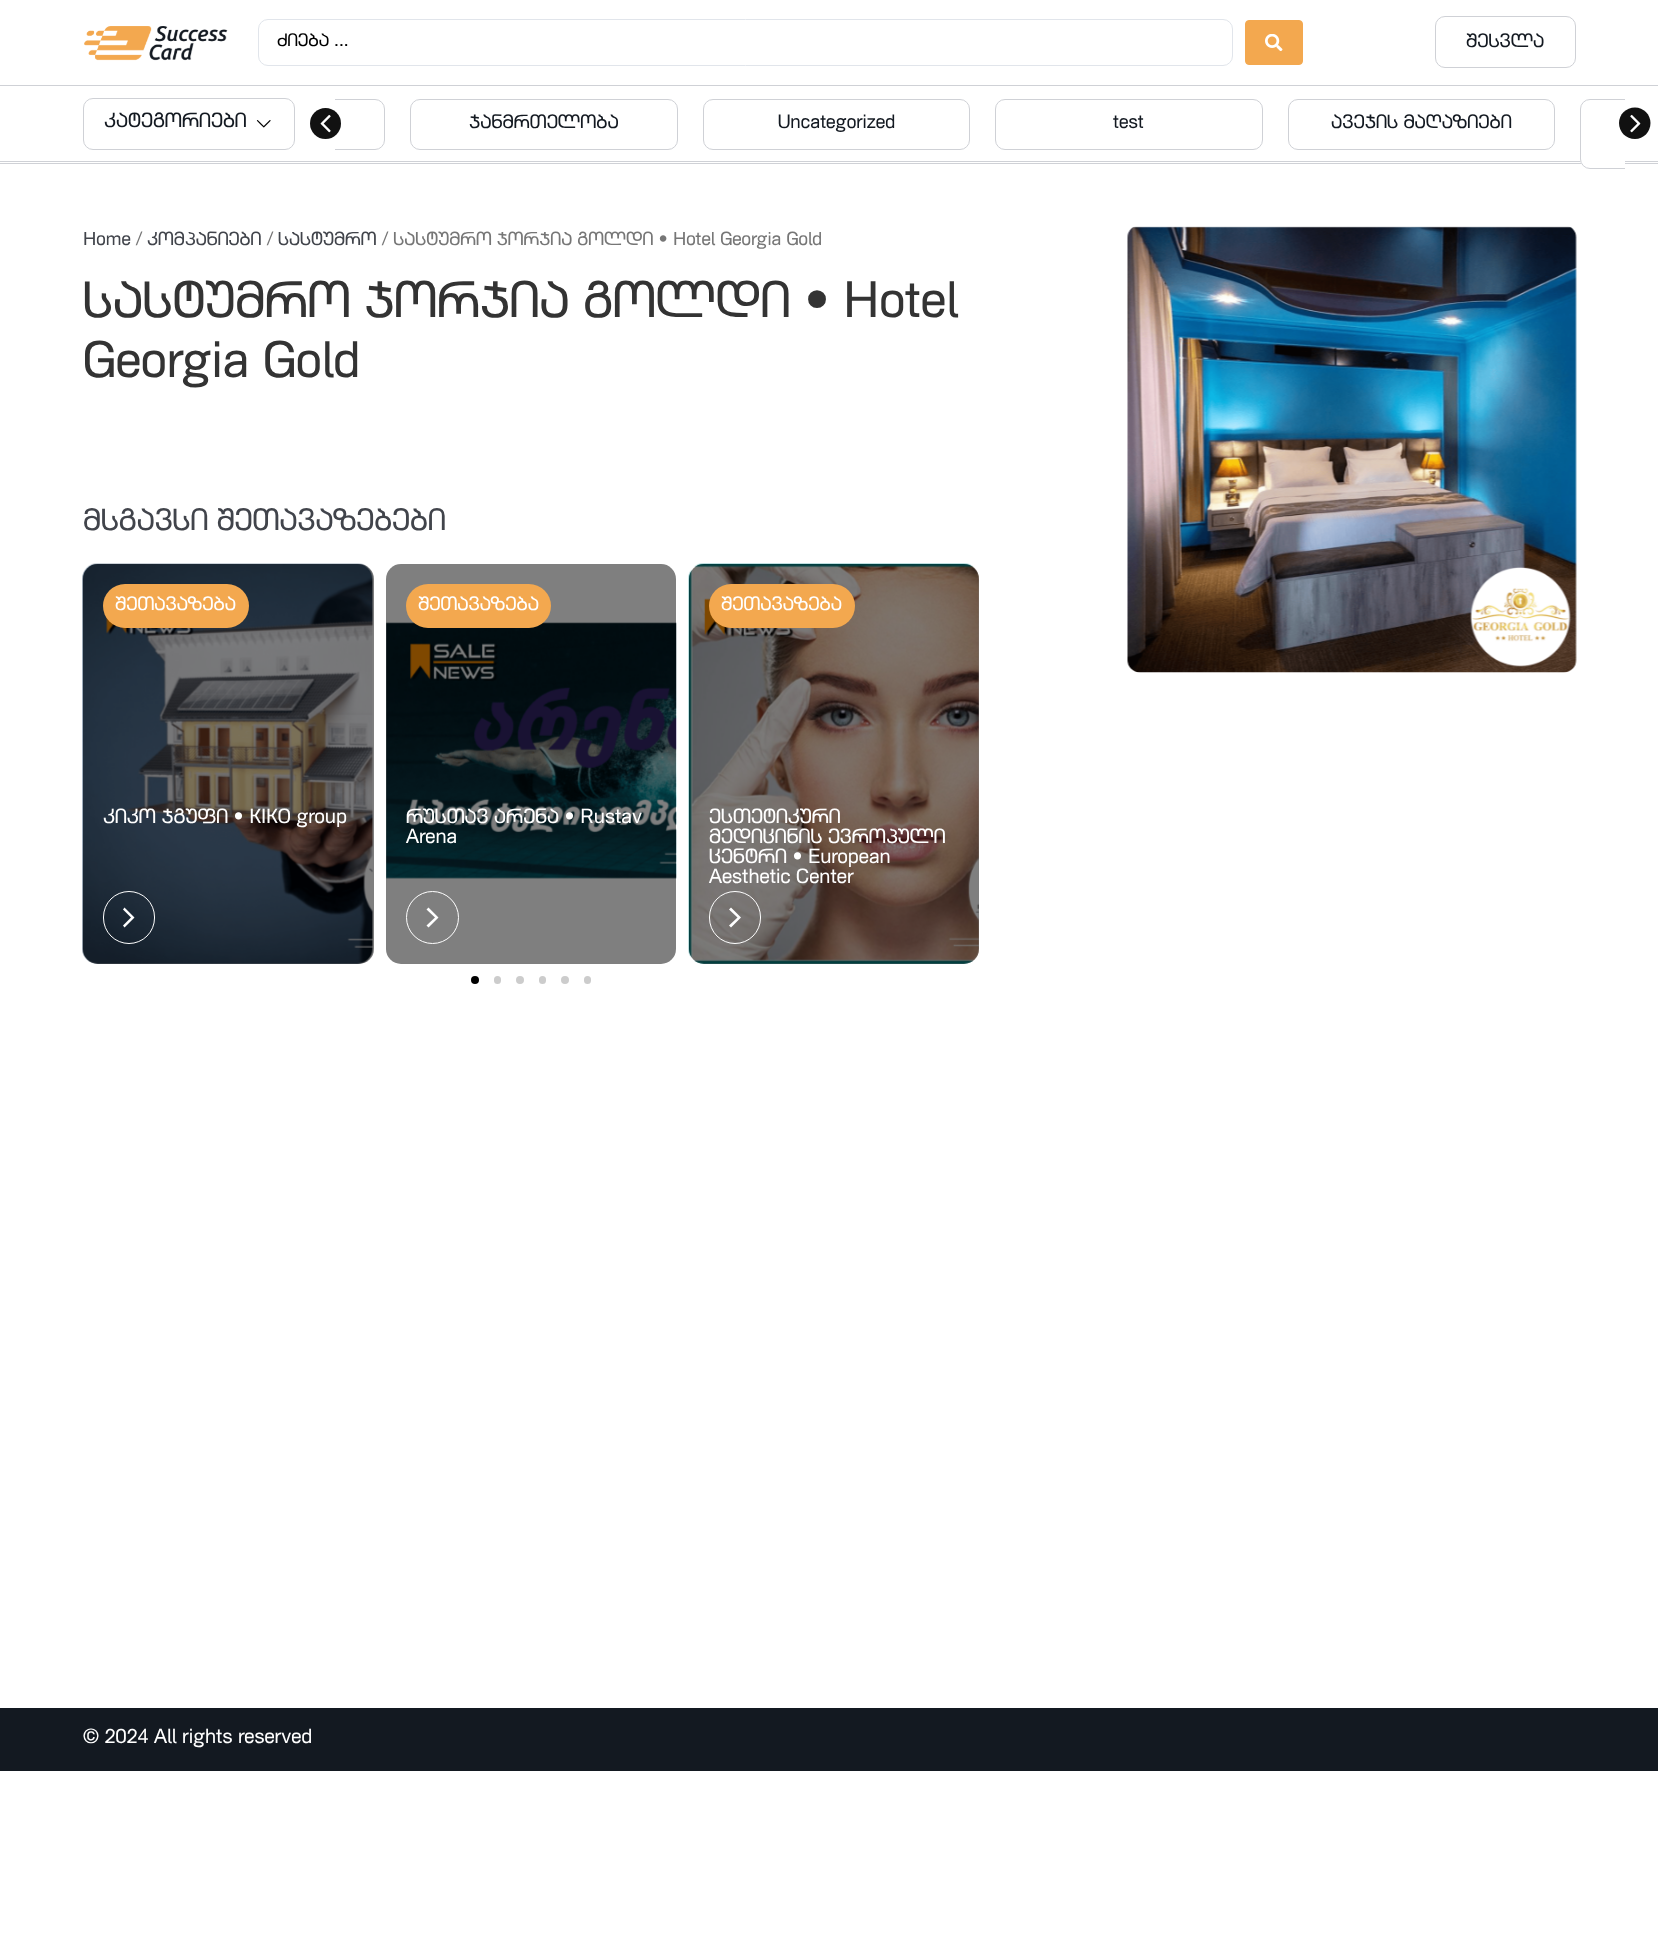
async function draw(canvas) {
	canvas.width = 1658;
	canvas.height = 1940;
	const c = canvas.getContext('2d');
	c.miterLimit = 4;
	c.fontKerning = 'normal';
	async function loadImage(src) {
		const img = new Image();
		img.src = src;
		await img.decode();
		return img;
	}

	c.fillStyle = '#fff';
	c.fillRect(0, 0, 1658, 1940);
	c.fillStyle = '#cfd1d6';
	c.fillRect(0, 163, 1658, 1);
	c.fillRect(0, 85, 1658, 1);
	c.drawImage(await loadImage('img1.png'), 84, 26, 144, 35);
	c.beginPath();
	c.roundRect(258.5, 19.5, 974, 46, 9.5);
	c.strokeStyle = '#e1e5eb';
	c.stroke();
	c.font = '17.5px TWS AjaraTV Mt';
	c.fillStyle = '#000';
	c.fillText('ძიება ...', 277, 46);
	c.fillStyle = '#f3a84f';
	c.beginPath();
	c.roundRect(1245.5, 20.5, 57, 44, 3.5);
	c.fill();
	c.strokeStyle = '#f3a84f';
	c.stroke();
	c.drawImage(await loadImage('img2.png'), 1265, 34, 18, 17);
	c.beginPath();
	c.roundRect(1435.5, 16.5, 140, 51, 9.5);
	c.strokeStyle = '#cfd1d6';
	c.stroke();
	c.font = '18.75px TWS AjaraTV Mt';
	c.fillStyle = '#131921';
	c.fillText('შესვლა', 1466, 47);
	c.fillStyle = '#cfd1d6';
	c.fillRect(0, 161, 1658, 1);
	c.save();
	c.beginPath();
	c.rect(335, 86, 1290, 114);
	c.clip();
	c.beginPath();
	c.roundRect(118.5, 99.5, 266, 50, 9.5);
	c.stroke();
	c.restore();
	c.beginPath();
	c.roundRect(83.5, 98.5, 211, 51, 9.5);
	c.stroke();
	c.font = '20px TWS AjaraTV Mt';
	c.fillStyle = '#131921';
	c.fillText('კატეგორიები', 104, 127);
	c.drawImage(await loadImage('img3.png'), 256, 120, 15, 8);
	c.fillStyle = '#111';
	c.beginPath();
	c.arc(325.5, 123.5, 15.5, 0, 2 * Math.PI);
	c.fill();
	c.drawImage(await loadImage('img4.png'), 320, 114, 11, 19);
	c.beginPath();
	c.roundRect(410.5, 99.5, 267, 50, 9.5);
	c.stroke();
	c.font = '18.75px TWS AjaraTV Mt';
	c.fillStyle = '#131921';
	c.fillText('ჯანმრთელობა', 469, 128);
	c.beginPath();
	c.roundRect(703.5, 99.5, 266, 50, 9.5);
	c.stroke();
	c.fillText('Uncategorized', 778, 128);
	c.beginPath();
	c.roundRect(995.5, 99.5, 267, 50, 9.5);
	c.stroke();
	c.fillText('test', 1113, 128);
	c.beginPath();
	c.roundRect(1288.5, 99.5, 266, 50, 9.5);
	c.stroke();
	c.fillText('ავეჯის მაღაზიები', 1331, 128);
	c.fillStyle = '#fff';
	c.beginPath();
	c.roundRect(1580, 99, 45, 70, [10, 0, 0, 10]);
	c.fill();
	c.save();
	c.beginPath();
	c.rect(335, 86, 1290, 114);
	c.clip();
	c.beginPath();
	c.roundRect(1580.5, 99.5, 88, 69, 9.5);
	c.stroke();
	c.restore();
	c.fillStyle = '#111';
	c.beginPath();
	c.moveTo(1635, 107.5);
	c.bezierCurveTo(1626, 107.5, 1619, 114.5, 1619, 123);
	c.bezierCurveTo(1619, 132, 1626, 139, 1635, 139);
	c.bezierCurveTo(1643.5, 139, 1650.5, 132, 1650.5, 123);
	c.bezierCurveTo(1650.5, 114.5, 1643.5, 107.5, 1635, 107.5);
	c.closePath();
	c.fill();
	c.drawImage(await loadImage('img5.png'), 1630, 114, 11, 19);
	c.font = '18.4px TWS AjaraTV Mt';
	c.fillStyle = '#41444b';
	c.fillText('Home', 83, 245);
	c.fillStyle = '#767676';
	c.fillText('/', 136, 245);
	c.fillStyle = '#41444b';
	c.fillText('კომპანიები', 147, 245);
	c.fillStyle = '#767676';
	c.fillText('/', 267, 245);
	c.fillStyle = '#41444b';
	c.fillText('სასტუმრო', 278, 245);
	c.fillStyle = '#767676';
	c.fillText('/ სასტუმრო ჯორჯია გოლდი • Hotel Georgia Gold', 382, 245);
	c.font = '50px TWS AjaraTV Mt';
	c.fillStyle = '#333';
	c.fillText('სასტუმრო ჯორჯია გოლდი • Hotel', 83, 317);
	c.fillText('Georgia Gold', 83, 377);
	c.font = '30px TWS AjaraTV Mt';
	c.fillStyle = '#41444b';
	c.fillText('მსგავსი შეთავაზებები', 83, 530);
	c.drawImage(await loadImage('img6.png'), 82, 563, 291, 401);
	c.fillStyle = '#00000080';
	c.beginPath();
	c.roundRect(83, 564, 291, 400, 15);
	c.fill();
	c.fillStyle = '#f3a84f';
	c.beginPath();
	c.roundRect(103, 584, 146, 44, 22);
	c.fill();
	c.font = '18.75px TWS AjaraTV Mt';
	c.fillStyle = '#fff';
	c.fillText('შეთავაზება', 115, 610);
	c.font = '20px TWS AjaraTV Mt';
	c.fillText('კიკო ჯგუფი • KIKO group', 103, 823);
	c.beginPath();
	c.roundRect(103.5, 891.5, 51, 52, 25.5);
	c.strokeStyle = '#fff';
	c.stroke();
	c.beginPath();
	c.moveTo(124.5, 927.5);
	c.lineTo(123, 925.5);
	c.lineTo(131, 917.5);
	c.lineTo(123, 909.5);
	c.lineTo(124.5, 907.5);
	c.lineTo(134.5, 917.5);
	c.closePath();
	c.fill('evenodd');
	c.drawImage(await loadImage('img7.png'), 386, 622, 291, 257);
	c.fillStyle = '#00000080';
	c.beginPath();
	c.roundRect(386, 564, 290, 400, 15);
	c.fill();
	c.fillStyle = '#f3a84f';
	c.beginPath();
	c.roundRect(406, 584, 145, 44, 22);
	c.fill();
	c.font = '18.75px TWS AjaraTV Mt';
	c.fillStyle = '#fff';
	c.fillText('შეთავაზება', 418, 610);
	c.font = '20px TWS AjaraTV Mt';
	c.fillText('რუსთავ არენა • Rustav', 406, 823);
	c.fillText('Arena', 406, 843);
	c.beginPath();
	c.arc(432.5, 917.5, 26, 0, 2 * Math.PI);
	c.stroke();
	c.beginPath();
	c.moveTo(428.5, 927.5);
	c.lineTo(426.5, 925.5);
	c.lineTo(435, 917.5);
	c.lineTo(426.5, 909.5);
	c.lineTo(428.5, 907.5);
	c.lineTo(438.5, 917.5);
	c.closePath();
	c.fill('evenodd');
	c.drawImage(await loadImage('img8.png'), 688, 563, 291, 401);
	c.fillStyle = '#00000080';
	c.beginPath();
	c.roundRect(689, 564, 290, 400, 15);
	c.fill();
	c.fillStyle = '#f3a84f';
	c.beginPath();
	c.roundRect(709, 584, 146, 44, 22);
	c.fill();
	c.font = '18.75px TWS AjaraTV Mt';
	c.fillStyle = '#fff';
	c.fillText('შეთავაზება', 721, 610);
	c.font = '20px TWS AjaraTV Mt';
	for (const [text, x, y] of [
		['ესთეტიკური', 709, 823],
		['მედიცინის ევროპული', 709, 843],
		['ცენტრი • European', 709, 863],
		['Aesthetic Center', 709, 883],
	]) {
		c.fillText(text, x, y);
	}
	c.beginPath();
	c.roundRect(709.5, 891.5, 51, 52, 25.5);
	c.stroke();
	c.beginPath();
	c.moveTo(731, 927.5);
	c.lineTo(729, 925.5);
	c.lineTo(737.5, 917.5);
	c.lineTo(729, 909.5);
	c.lineTo(731, 907.5);
	c.lineTo(741, 917.5);
	c.closePath();
	c.fill('evenodd');
	c.fillStyle = '#000';
	c.beginPath();
	c.arc(475, 980, 4, 0, 2 * Math.PI);
	c.fill();
	c.fillStyle = '#ccc';
	c.beginPath();
	c.roundRect(494, 976, 7, 8, 3.5);
	c.fill();
	c.beginPath();
	c.arc(520, 980, 4, 0, 2 * Math.PI);
	c.fill();
	c.beginPath();
	c.roundRect(539, 976, 7, 8, 3.5);
	c.fill();
	c.beginPath();
	c.arc(565, 980, 4, 0, 2 * Math.PI);
	c.fill();
	c.beginPath();
	c.roundRect(584, 976, 7, 8, 3.5);
	c.fill();
	c.drawImage(await loadImage('img9.png'), 1127, 226, 450, 447);
	c.fillStyle = '#131921';
	c.fillRect(0, 1708, 1658, 63);
	c.fillStyle = '#fff';
	c.fillText('© 2024 All rights reserved', 83, 1743);
}

draw(document.querySelector('canvas'));
